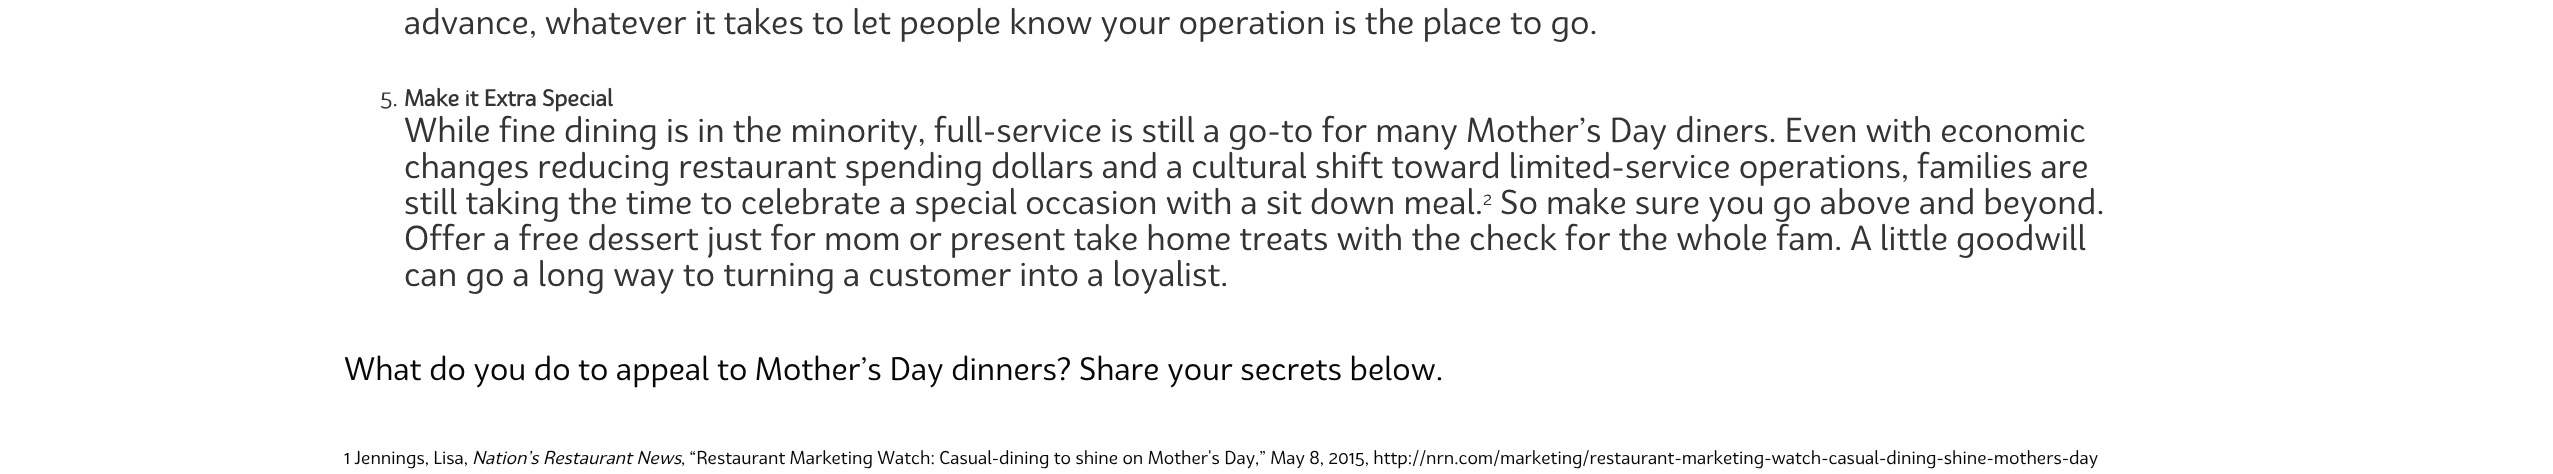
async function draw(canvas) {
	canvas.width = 2553;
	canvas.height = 474;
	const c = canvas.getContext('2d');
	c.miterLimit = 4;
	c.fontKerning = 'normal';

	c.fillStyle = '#fff';
	c.fillRect(0, 0, 2553, 474);
	c.font = '33.6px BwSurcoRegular';
	c.fillStyle = '#343434';
	c.fillText('advance, whatever it takes to let people know your operation is the place to go.', 404, 34);
	c.font = '22.5px BwSurcoRegular';
	c.fillText('5.', 380, 106);
	c.font = 'bold 22.5px BwSurcoRegular';
	c.fillText('Make it Extra Special', 404, 106);
	c.font = '33.6px BwSurcoRegular';
	for (const [text, x, y] of [
		['While fine dining is in the minority, full-service is still a go-to for many Mother’s Day diners. Even with economic', 404, 142],
		['changes reducing restaurant spending dollars and a cultural shift toward limited-service operations, families are', 404, 178],
		['still taking the time to celebrate a special occasion with a sit down meal.', 404, 214],
	]) {
		c.fillText(text, x, y);
	}
	c.font = '17px BwSurcoRegular';
	c.fillText('2', 1483, 205);
	c.font = '33.6px BwSurcoRegular';
	for (const [text, x, y] of [
		['So make sure you go above and beyond.', 1500, 214],
		['Offer a free dessert just for mom or present take home treats with the check for the whole fam. A little goodwill', 404, 250],
		['can go a long way to turning a customer into a loyalist.', 404, 286],
	]) {
		c.fillText(text, x, y);
	}
	c.font = '31.5px BwSurcoRegular';
	c.fillStyle = '#070707';
	c.fillText('What do you do to appeal to Mother’s Day dinners? Share your secrets below.', 344, 380);
	c.font = '18px BwSurcoRegular';
	c.fillText('1 Jennings, Lisa,', 344, 464);
	c.font = 'italic 18px BwSurcoRegular';
	c.fillText('Nation’s Restaurant News', 472, 464);
	c.font = '18px BwSurcoRegular';
	c.fillText(', “Restaurant Marketing Watch: Casual-dining to shine on Mother\'s Day,” May 8, 2015, http://nrn.com/marketing/restaurant-marketing-watch-casual-dining-shine-mothers-day', 681, 464);
}

draw(document.querySelector('canvas'));
